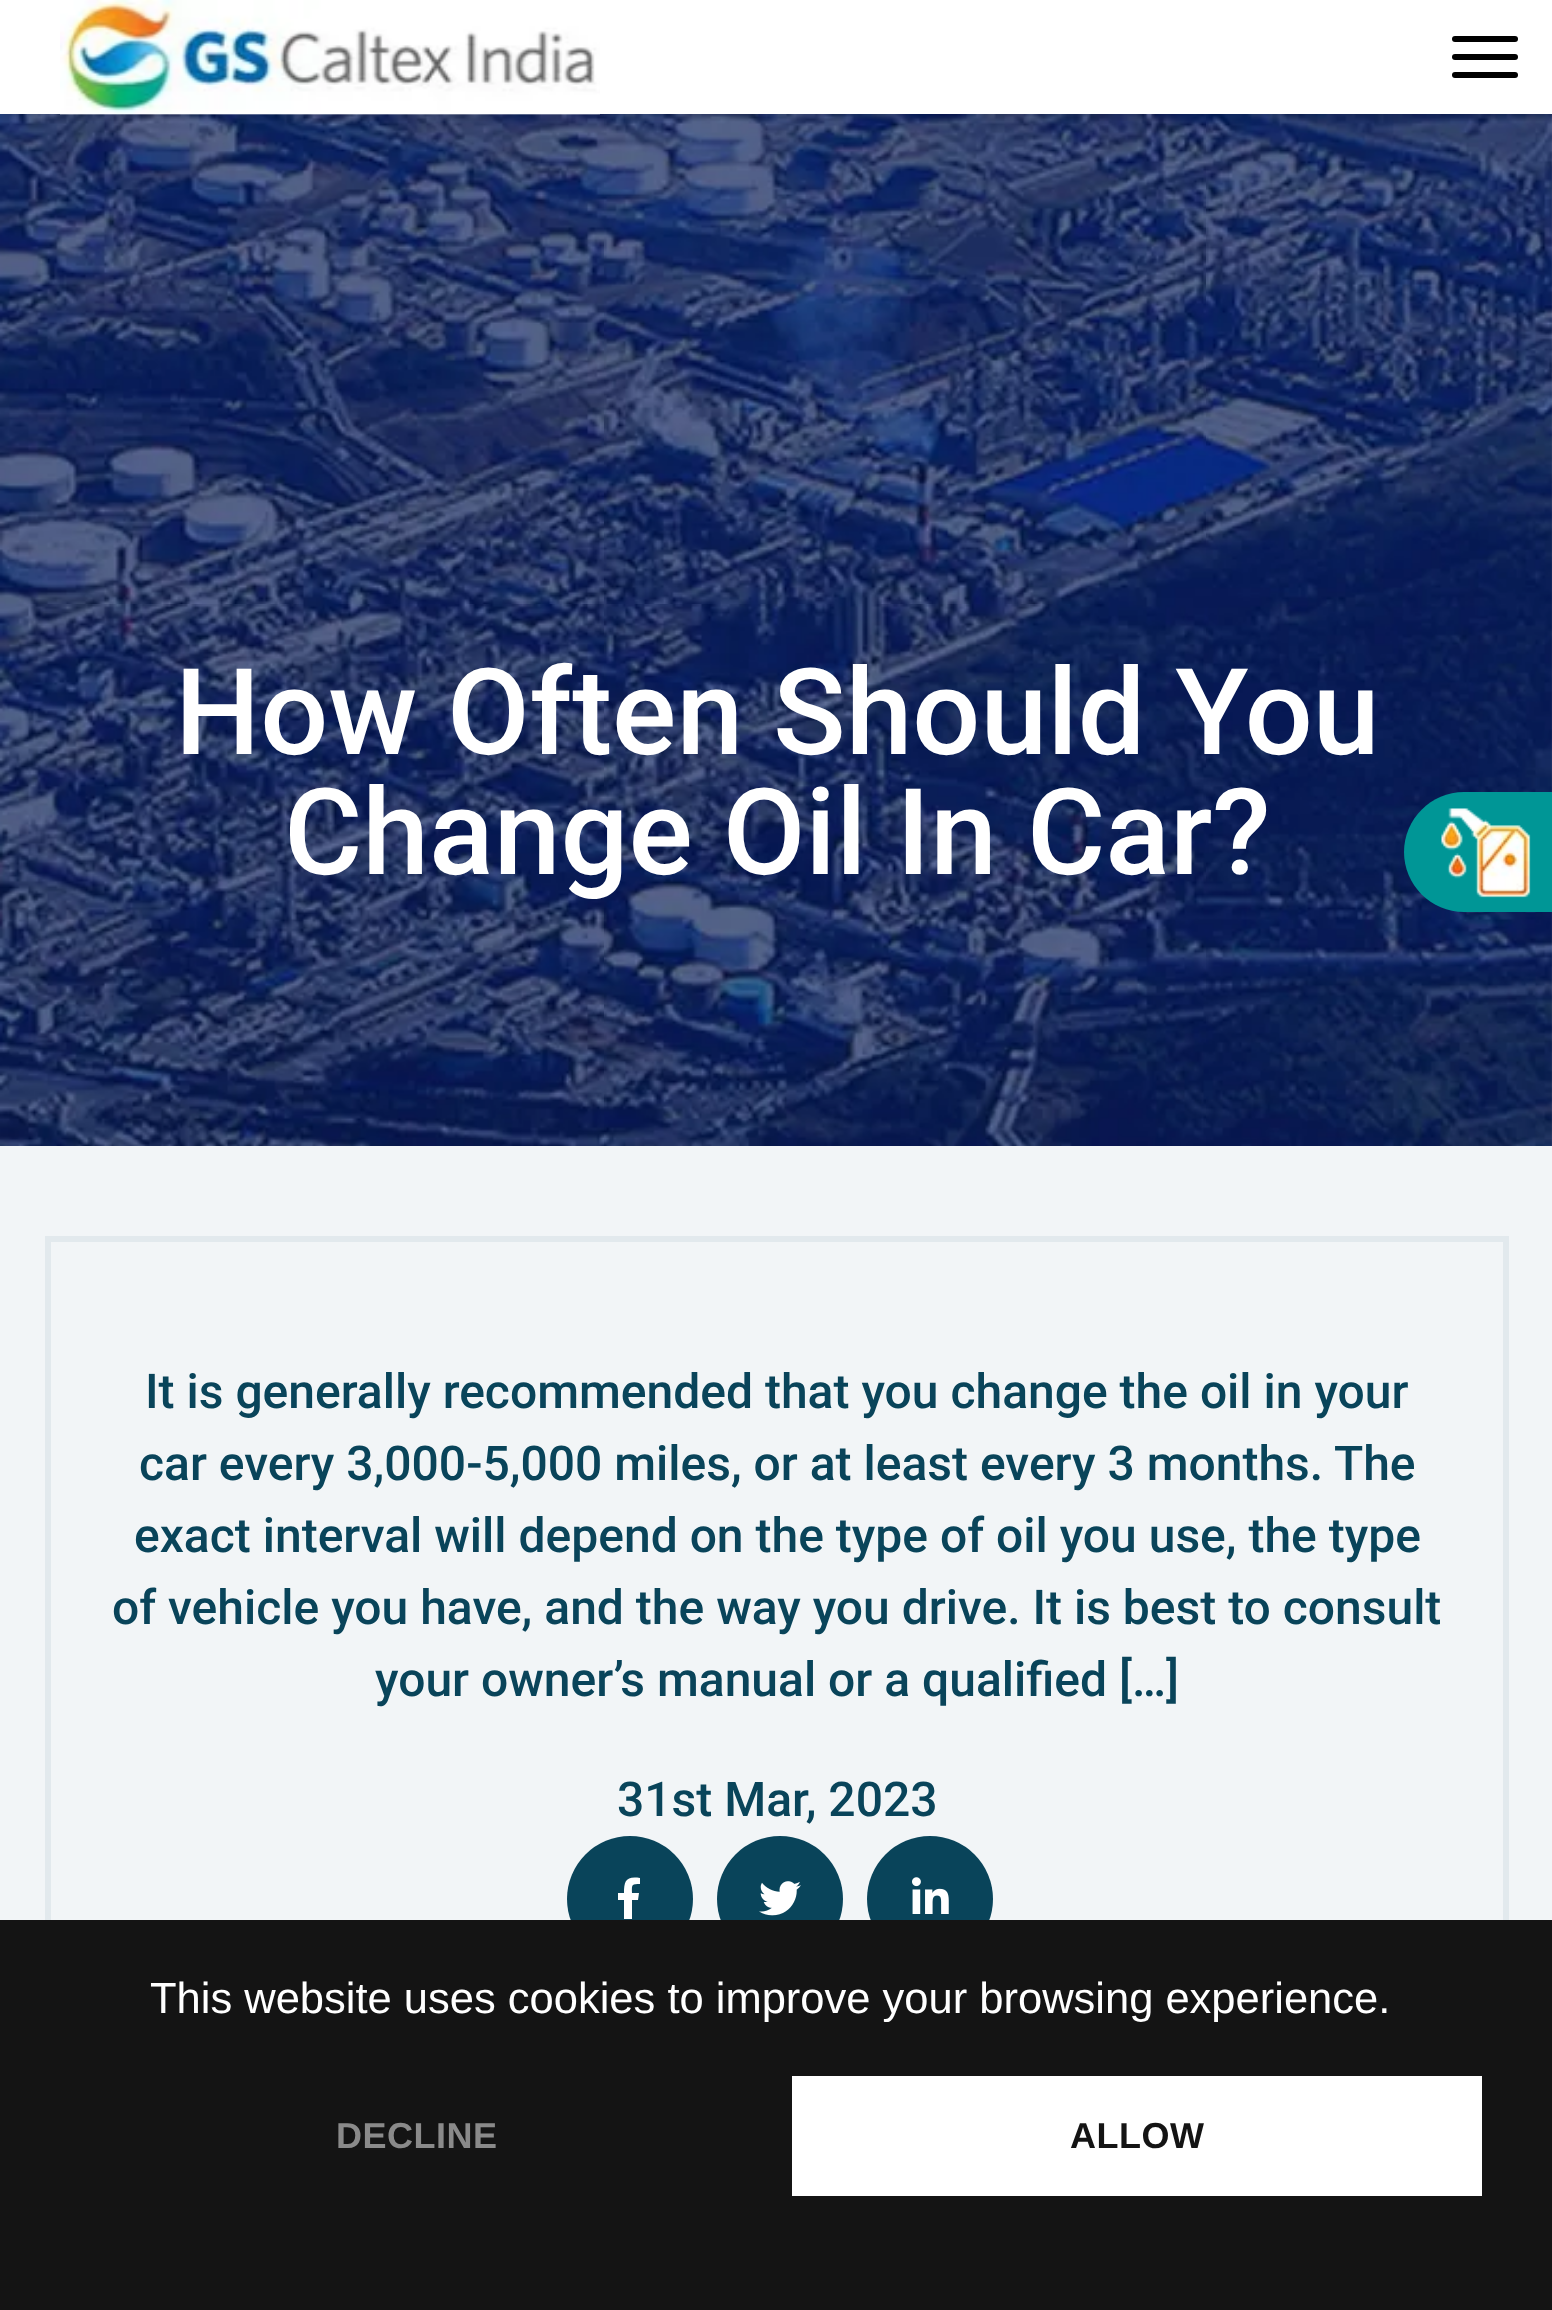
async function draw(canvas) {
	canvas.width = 1552;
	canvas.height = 2310;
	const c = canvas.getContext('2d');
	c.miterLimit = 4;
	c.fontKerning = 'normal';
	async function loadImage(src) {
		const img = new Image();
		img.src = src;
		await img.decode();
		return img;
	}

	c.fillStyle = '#fff';
	c.fillRect(0, 0, 1552, 2310);
	c.drawImage(await loadImage('img2.png'), 0, 114, 1552, 1032);
	c.save();
	c.beginPath();
	c.rect(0, 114, 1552, 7);
	c.clip();
	c.fillStyle = '#0000001a';
	c.filter = 'blur(4.5px)';
	c.beginPath();
	c.rect(0, 3, 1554, 114);
	c.fill();
	c.filter = 'none';
	c.restore();
	c.drawImage(await loadImage('img1.png'), 60, 0, 540, 115);
	c.fillStyle = '#000';
	c.beginPath();
	c.roundRect(1452, 36, 66, 6, 3);
	c.fill();
	c.beginPath();
	c.roundRect(1452, 54, 66, 6, 3);
	c.fill();
	c.beginPath();
	c.roundRect(1452, 72, 66, 6, 3);
	c.fill();
	c.font = '500 120px Roboto';
	c.fillStyle = '#fff';
	c.fillText('How Often Should You', 175, 754);
	c.fillText('Change Oil In Car?', 284, 874);
	c.fillStyle = '#f2f5f7';
	c.fillRect(0, 1146, 1552, 774);
	c.strokeStyle = '#e2e9ed';
	c.lineWidth = 6;
	c.strokeRect(48, 1239, 1458, 858);
	c.font = '500 48px Roboto';
	c.fillStyle = '#09445a';
	for (const [text, x, y] of [
		['It is generally recommended that you change the oil in your', 145, 1408],
		['car every 3,000-5,000 miles, or at least every 3 months. The', 139, 1480],
		['exact interval will depend on the type of oil you use, the type', 134, 1552],
		['of vehicle you have, and the way you drive. It is best to consult', 112, 1624],
		['your owner’s manual or a qualified […]', 375, 1696],
		['31st Mar, 2023', 617, 1816],
	]) {
		c.fillText(text, x, y);
	}
	c.beginPath();
	c.arc(630, 1899, 63, 0, 2 * Math.PI);
	c.fill();
	c.fillStyle = '#fff';
	c.beginPath();
	c.moveTo(624, 1919);
	c.lineTo(624, 1900);
	c.lineTo(618, 1900);
	c.lineTo(618, 1893);
	c.lineTo(624, 1893);
	c.bezierCurveTo(624, 1881, 626, 1876, 640, 1878);
	c.lineTo(640, 1884);
	c.bezierCurveTo(631, 1884, 632, 1885, 632, 1893);
	c.lineTo(639, 1893);
	c.lineTo(638, 1900);
	c.lineTo(632, 1900);
	c.lineTo(632, 1919);
	c.closePath();
	c.fill();
	c.fillStyle = '#09445a';
	c.beginPath();
	c.arc(780, 1899, 63, 0, 2 * Math.PI);
	c.fill();
	c.drawImage(await loadImage('img3.png'), 759, 1881, 42, 35);
	c.beginPath();
	c.arc(930, 1899, 63, 0, 2 * Math.PI);
	c.fill();
	c.drawImage(await loadImage('img4.png'), 912, 1877, 37, 37);
	c.fillStyle = '#009696';
	c.beginPath();
	c.moveTo(1464, 792);
	c.lineTo(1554, 792);
	c.lineTo(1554, 912);
	c.lineTo(1464, 912);
	c.bezierCurveTo(1431, 912, 1404, 885, 1404, 852);
	c.bezierCurveTo(1404, 819, 1431, 792, 1464, 792);
	c.closePath();
	c.fill();
	c.drawImage(await loadImage('img5.png'), 1441, 808, 90, 90);
	c.fillStyle = '#141414';
	c.fillRect(0, 1920, 1552, 390);
	c.font = '43.5px Liberation Sans';
	c.fillStyle = '#fff';
	c.fillText('This website uses cookies to improve your browsing experience.', 150, 2013);
	c.letterSpacing = '0.5px';
	c.font = 'bold 36px Liberation Sans';
	c.fillStyle = '#8a8a8a';
	c.fillText('DECLINE', 336, 2148);
	c.fillStyle = '#fff';
	c.fillRect(792, 2076, 690, 120);
	c.fillStyle = '#141414';
	c.fillText('ALLOW', 1070, 2148);
}

draw(document.querySelector('canvas'));
